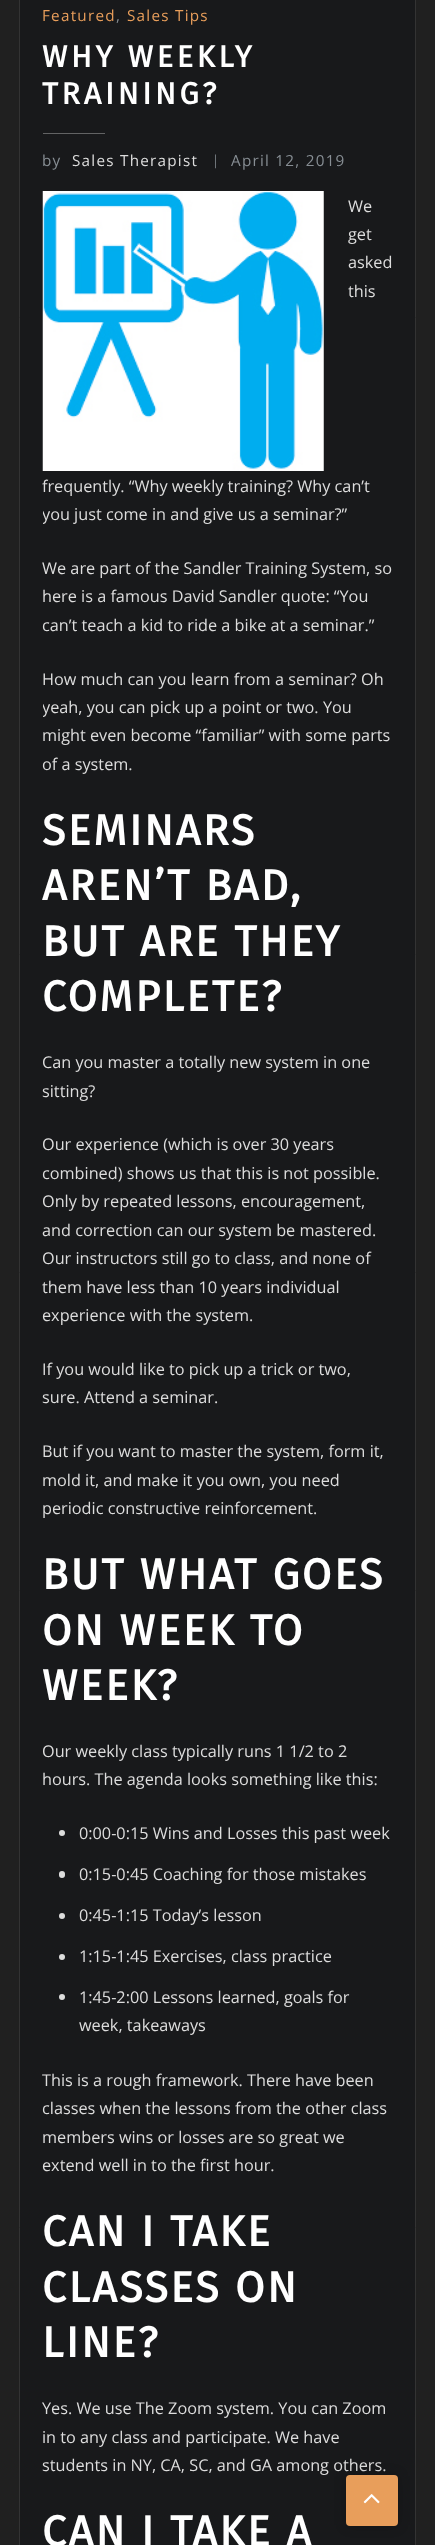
async function draw(canvas) {
	canvas.width = 435;
	canvas.height = 2545;
	const c = canvas.getContext('2d');
	c.miterLimit = 4;
	c.fontKerning = 'normal';
	async function loadImage(src) {
		const img = new Image();
		img.src = src;
		await img.decode();
		return img;
	}

	c.fillStyle = '#202020';
	c.fillRect(0, 0, 435, 2545);
	c.fillStyle = '#18191b';
	c.beginPath();
	c.rect(19.5, -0.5, 396, 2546);
	c.fill();
	c.strokeStyle = '#333';
	c.stroke();
	c.letterSpacing = '1.25px';
	c.font = '15.25px Open Sans';
	c.fillStyle = '#e89e5b';
	c.fillText('Featured', 42, 21);
	c.fillStyle = '#878e94';
	c.fillText(',', 116, 21);
	c.fillStyle = '#e89e5b';
	c.fillText('Sales Tips', 127, 21);
	c.letterSpacing = '3.75px';
	c.font = 'bold 30.5px Fira Sans';
	c.fillStyle = '#fff';
	c.fillText('WHY WEEKLY', 42, 67);
	c.fillText('TRAINING?', 42, 104);
	c.fillStyle = '#626364';
	c.fillRect(43, 133, 62, 1);
	c.letterSpacing = '1.25px';
	c.font = '15.25px Open Sans';
	c.fillStyle = '#878e94';
	c.fillText('by', 42, 166);
	c.fillStyle = '#ddd';
	c.fillText('Sales Therapist', 72, 166);
	c.font = '15.25px Liberation Serif';
	c.fillStyle = '#878e94';
	c.fillText('|', 214, 165);
	c.font = '15.25px Open Sans';
	c.fillText('April 12, 2019', 231, 166);
	c.drawImage(await loadImage('img1.png'), 42, 191, 282, 280);
	c.letterSpacing = '0px';
	c.font = '16.25px Open Sans';
	c.fillStyle = '#ddd';
	for (const [text, x, y] of [
		['We', 348, 212],
		['get', 348, 240],
		['asked', 348, 268],
		['this', 348, 297],
		['frequently. “Why weekly training? Why can’t', 42, 492],
	]) {
		c.fillText(text, x, y);
	}
	c.save();
	c.beginPath();
	c.rect(43, 191, 350, 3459);
	c.clip();
	c.fillText('you just come in and give us a seminar?”', 42, 520);
	c.restore();
	for (const [text, x, y] of [
		['We are part of the Sandler Training System, so', 42, 574],
		['here is a famous David Sandler quote: “You', 42, 602],
		['can’t teach a kid to ride a bike at a seminar.”', 42, 631],
		['How much can you learn from a seminar? Oh', 42, 685],
	]) {
		c.fillText(text, x, y);
	}
	c.save();
	c.beginPath();
	c.rect(43, 191, 350, 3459);
	c.clip();
	c.fillText('yeah, you can pick up a point or two.', 42, 713);
	c.restore();
	for (const [text, x, y] of [
		['You', 323, 713],
		['might even become “familiar” with some parts', 42, 741],
		['of a system.', 42, 770],
	]) {
		c.fillText(text, x, y);
	}
	c.letterSpacing = '2.5px';
	c.font = 'bold 42.75px Fira Sans';
	c.fillStyle = '#fff';
	for (const [text, x, y] of [
		['SEMINARS', 42, 845],
		['AREN’T BAD,', 42, 900],
		['BUT ARE THEY', 42, 956],
		['COMPLETE?', 42, 1011],
	]) {
		c.fillText(text, x, y);
	}
	c.letterSpacing = '0px';
	c.font = '16.25px Open Sans';
	c.fillStyle = '#ddd';
	for (const [text, x, y] of [
		['Can you master a totally new system in one', 42, 1068],
		['sitting?', 42, 1097],
		['Our experience (which is over 30 years', 42, 1150],
		['combined) shows us that this is not possible.', 42, 1179],
		['Only by repeated lessons, encouragement,', 42, 1207],
		['and correction can our system be mastered.', 42, 1236],
		['Our instructors still go to class, and none of', 42, 1264],
		['them have less than 10 years individual', 42, 1293],
		['experience with the system.', 42, 1321],
		['If you would like to pick up a trick or two,', 42, 1375],
		['sure. Attend a seminar.', 42, 1403],
		['But if you want to master the system, form it,', 42, 1457],
		['mold it, and make it you own, you need', 42, 1486],
		['periodic constructive reinforcement.', 42, 1514],
	]) {
		c.fillText(text, x, y);
	}
	c.letterSpacing = '2.5px';
	c.font = 'bold 42.75px Fira Sans';
	c.fillStyle = '#fff';
	for (const [text, x, y] of [
		['BUT WHAT GOES', 42, 1589],
		['ON WEEK TO', 42, 1645],
		['WEEK?', 42, 1700],
	]) {
		c.fillText(text, x, y);
	}
	c.letterSpacing = '0px';
	c.font = '16.25px Open Sans';
	c.fillStyle = '#ddd';
	c.fillText('Our weekly class typically runs 1 1/2 to 2', 42, 1757);
	c.fillText('hours. The agenda looks something like this:', 42, 1785);
	c.beginPath();
	c.arc(62, 1833, 3, 0, 2 * Math.PI);
	c.fill();
	c.fillText('0:00-0:15 Wins and Losses this past week', 79, 1839);
	c.beginPath();
	c.roundRect(59, 1871, 6, 7, 3);
	c.fill();
	c.fillText('0:15-0:45 Coaching for those mistakes', 79, 1880);
	c.beginPath();
	c.arc(62, 1916, 3, 0, 2 * Math.PI);
	c.fill();
	c.fillText('0:45-1:15 Today’s lesson', 79, 1921);
	c.beginPath();
	c.arc(62, 1957, 3, 0, 2 * Math.PI);
	c.fill();
	c.fillText('1:15-1:45 Exercises, class practice', 79, 1962);
	c.beginPath();
	c.arc(62, 1997, 3, 0, 2 * Math.PI);
	c.fill();
	for (const [text, x, y] of [
		['1:45-2:00 Lessons learned, goals for', 79, 2003],
		['week, takeaways', 79, 2031],
		['This is a rough framework. There have been', 42, 2086],
		['classes when the lessons from the other class', 42, 2114],
		['members wins or losses are so great we', 42, 2143],
		['extend well in to the first hour.', 42, 2171],
	]) {
		c.fillText(text, x, y);
	}
	c.letterSpacing = '2.5px';
	c.font = 'bold 42.75px Fira Sans';
	c.fillStyle = '#fff';
	for (const [text, x, y] of [
		['CAN I TAKE', 42, 2246],
		['CLASSES ON', 42, 2302],
		['LINE?', 42, 2357],
	]) {
		c.fillText(text, x, y);
	}
	c.letterSpacing = '0px';
	c.font = '16.25px Open Sans';
	c.fillStyle = '#ddd';
	for (const [text, x, y] of [
		['Yes. We use The Zoom system. You can Zoom', 42, 2414],
		['in to any class and participate. We have', 42, 2443],
		['students in NY, CA, SC, and GA among others.', 42, 2471],
	]) {
		c.fillText(text, x, y);
	}
	c.letterSpacing = '2.5px';
	c.font = 'bold 42.75px Fira Sans';
	c.fillStyle = '#fff';
	c.fillText('CAN I TAKE A', 42, 2546);
	c.fillStyle = '#00000033';
	c.filter = 'blur(6px)';
	c.beginPath();
	c.roundRect(346, 2475, 52, 51, 4);
	c.fill();
	c.filter = 'none';
	c.fillStyle = '#e89e5b';
	c.beginPath();
	c.roundRect(346, 2475, 52, 51, 4);
	c.fill();
	c.drawImage(await loadImage('img2.png'), 363, 2494, 17, 10);
}

draw(document.querySelector('canvas'));
